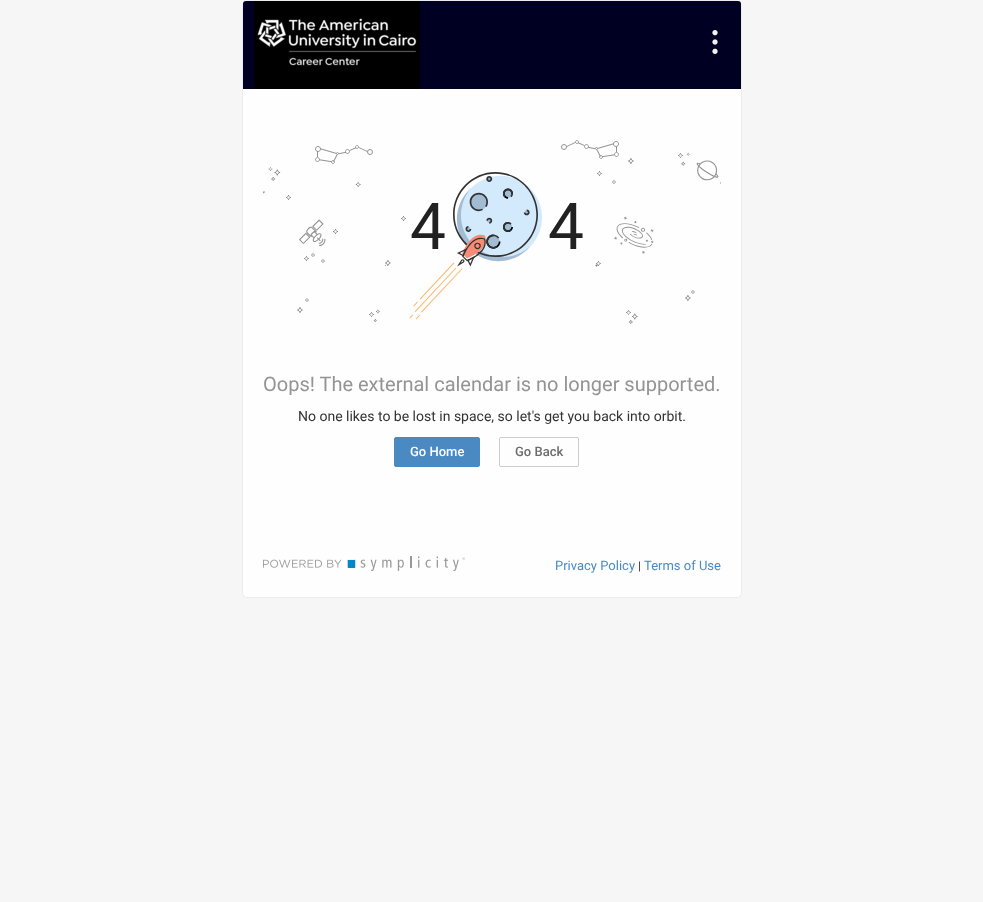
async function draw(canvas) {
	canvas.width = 983;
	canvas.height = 902;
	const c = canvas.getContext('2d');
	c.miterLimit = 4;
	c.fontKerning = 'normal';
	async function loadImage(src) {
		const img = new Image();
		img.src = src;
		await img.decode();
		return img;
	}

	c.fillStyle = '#f6f6f6';
	c.fillRect(0, 0, 983, 902);
	c.fillStyle = '#fefefe';
	c.beginPath();
	c.roundRect(242.5, 0.5, 499, 597, 4.5);
	c.fill();
	c.strokeStyle = '#ececec';
	c.stroke();
	c.fillStyle = '#002';
	c.beginPath();
	c.roundRect(243, 1, 498, 88, [3, 3, 0, 0]);
	c.fill();
	c.drawImage(await loadImage('img1.png'), 254, 1, 166, 88);
	c.drawImage(await loadImage('img2.png'), 712, 30, 6, 24);
	c.drawImage(await loadImage('img3.png'), 263, 140, 458, 184);
	c.font = '20px Roboto';
	c.fillStyle = '#949494';
	c.fillText('Oops! The external calendar is no longer supported.', 263, 391);
	c.font = '14px Roboto';
	c.fillStyle = '#333';
	c.fillText('No one likes to be lost in space, so let\'s get you back into orbit.', 298, 421);
	c.fillStyle = '#4a89c1';
	c.beginPath();
	c.roundRect(394.5, 437.5, 85, 29, 1.5);
	c.fill();
	c.strokeStyle = '#4a89c1';
	c.stroke();
	c.font = '500 13px Roboto';
	c.fillStyle = '#fff';
	c.fillText('Go Home', 410, 456);
	c.beginPath();
	c.roundRect(499.5, 437.5, 79, 29, 1.5);
	c.strokeStyle = '#ccc';
	c.stroke();
	c.fillStyle = '#6c6c6c';
	c.fillText('Go Back', 515, 456);
	c.drawImage(await loadImage('img4.png'), 263, 556, 202, 15);
	c.font = '13px Roboto';
	c.fillStyle = '#4a89c1';
	c.fillText('Privacy Policy', 555, 570);
	c.font = '12px Roboto';
	c.fillStyle = '#333';
	c.fillText('|', 638, 570);
	c.font = '13px Roboto';
	c.fillStyle = '#4a89c1';
	c.fillText('Terms of Use', 644, 570);
}

draw(document.querySelector('canvas'));
